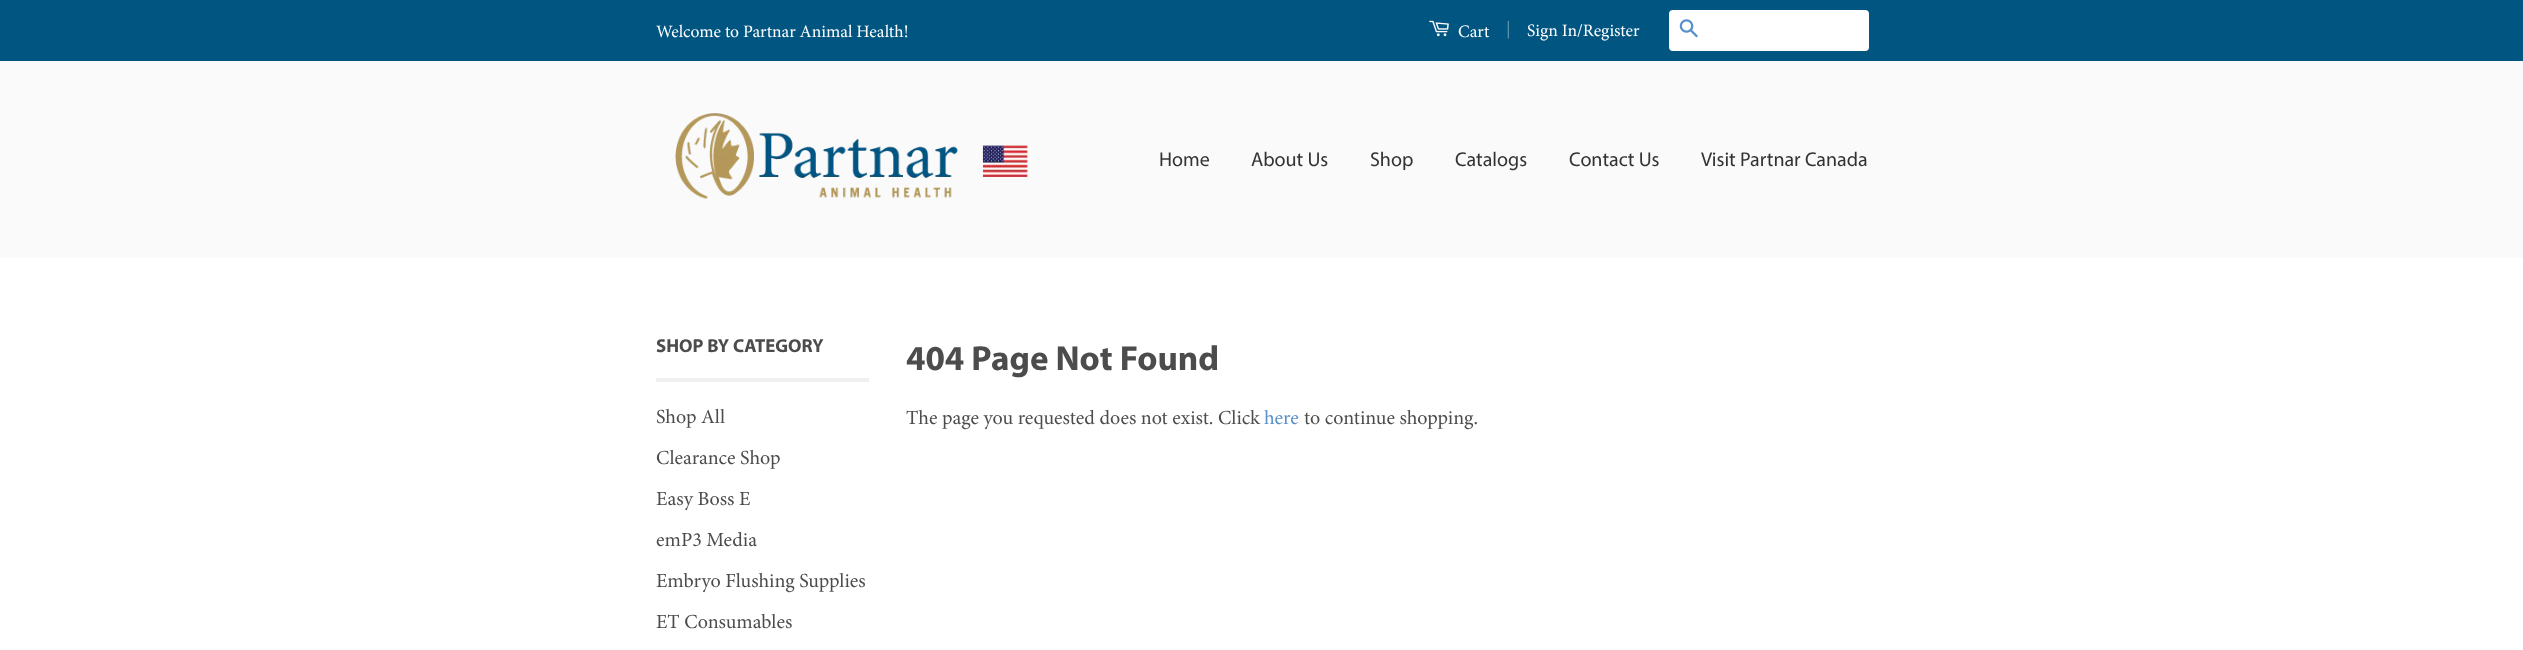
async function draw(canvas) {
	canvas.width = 2523;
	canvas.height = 650;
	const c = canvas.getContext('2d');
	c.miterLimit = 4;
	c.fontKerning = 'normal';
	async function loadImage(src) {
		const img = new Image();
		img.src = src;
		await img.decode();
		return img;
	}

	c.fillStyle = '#fff';
	c.fillRect(0, 0, 2523, 650);
	c.fillStyle = '#005581';
	c.fillRect(0, 0, 2523, 61);
	c.font = '17.5px Minion';
	c.fillStyle = '#fff';
	c.fillText('Welcome to Partnar Animal Health!', 656, 37);
	c.drawImage(await loadImage('img1.png'), 1429, 20, 20, 17);
	c.fillText('Cart', 1458, 37);
	c.fillStyle = '#6699b3';
	c.fillText('|', 1506, 34);
	c.fillStyle = '#fff';
	c.fillText('Sign In/Register', 1527, 36);
	c.beginPath();
	c.roundRect(1669, 10, 200, 41, 4);
	c.fill();
	c.drawImage(await loadImage('img2.png'), 1679, 19, 19, 19);
	c.fillStyle = '#fafafa';
	c.fillRect(0, 61, 2523, 197);
	c.drawImage(await loadImage('img3.png'), 675, 113, 353, 86);
	c.font = '20px Myriad';
	c.fillStyle = '#333';
	for (const [text, x, y] of [
		['Home', 1159, 166],
		['About Us', 1251, 166],
		['Shop', 1370, 166],
		['Catalogs', 1455, 166],
		['Contact Us', 1569, 166],
		['Visit Partnar Canada', 1701, 166],
	]) {
		c.fillText(text, x, y);
	}
	c.fillStyle = '#f0f0f0';
	c.fillRect(656, 378, 213, 4);
	c.font = 'bold 18.75px Myriad';
	c.fillStyle = '#4c4c4c';
	c.fillText('SHOP BY CATEGORY', 656, 352);
	c.font = '20px Minion';
	for (const [text, x, y] of [
		['Shop All', 656, 423],
		['Clearance Shop', 656, 464],
		['Easy Boss E', 656, 505],
		['emP3 Media', 656, 546],
		['Embryo Flushing Supplies', 656, 587],
		['ET Consumables', 656, 628],
	]) {
		c.fillText(text, x, y);
	}
	c.font = 'bold 35px Myriad';
	c.fillText('404 Page Not Found', 906, 370);
	c.font = '20px Minion';
	c.fillText('The page you requested does not exist. Click', 906, 424);
	c.fillStyle = '#5890cc';
	c.fillText('here', 1264, 424);
	c.fillStyle = '#4c4c4c';
	c.fillText('to continue shopping.', 1304, 424);
}

draw(document.querySelector('canvas'));
